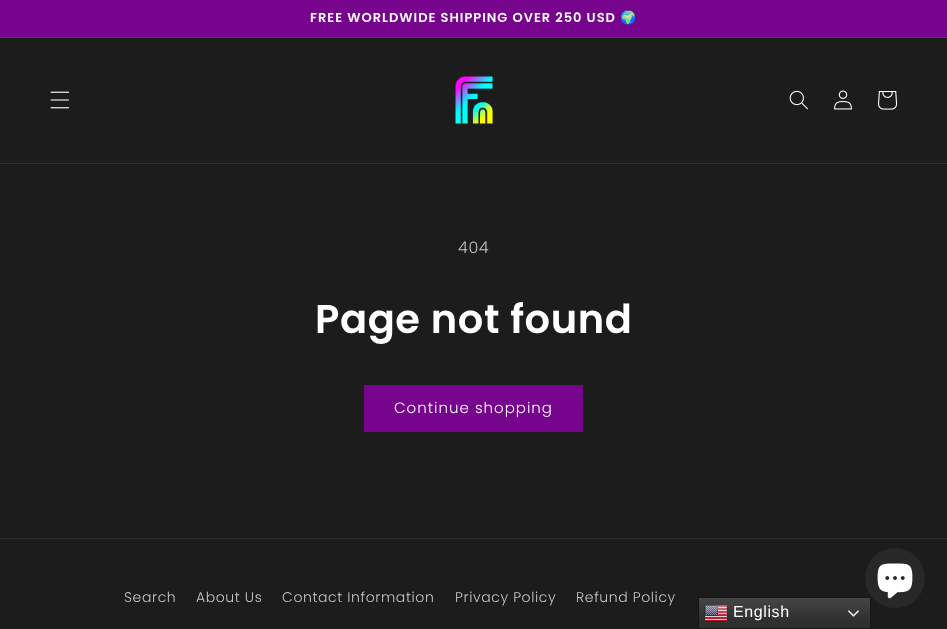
async function draw(canvas) {
	canvas.width = 947;
	canvas.height = 629;
	const c = canvas.getContext('2d');
	c.miterLimit = 4;
	c.fontKerning = 'normal';
	async function loadImage(src) {
		const img = new Image();
		img.src = src;
		await img.decode();
		return img;
	}
	let gradient;

	c.fillStyle = '#1c1c1c';
	c.fillRect(0, 0, 947, 629);
	c.fillStyle = '#76048c';
	c.fillRect(0, 0, 947, 37);
	c.fillStyle = '#811895';
	c.fillRect(0, 37, 947, 1);
	c.letterSpacing = '1px';
	c.font = '600 13px Poppins';
	c.fillStyle = '#fff';
	c.fillText('FREE WORLDWIDE SHIPPING OVER 250 USD', 310, 22);
	c.font = 'bold 13px Noto Color Emoji';
	c.fillText('🌍', 620, 22);
	c.fillStyle = '#2e2e2e';
	c.fillRect(0, 163, 947, 1);
	c.drawImage(await loadImage('img1.png'), 50, 91, 20, 18);
	c.drawImage(await loadImage('img2.png'), 455, 76, 38, 48);
	c.drawImage(await loadImage('img3.png'), 789, 90, 19, 20);
	c.drawImage(await loadImage('img4.png'), 834, 90, 18, 20);
	c.drawImage(await loadImage('img5.png'), 878, 91, 20, 19);
	c.letterSpacing = '0.6px';
	c.font = '300 16px Poppins';
	c.fillStyle = '#c6c6c6';
	c.fillText('404', 458, 253);
	c.font = '600 40px Poppins';
	c.fillStyle = '#fff';
	c.fillText('Page not found', 315, 333);
	c.fillStyle = '#76048c';
	c.fillRect(364, 385, 219, 47);
	c.letterSpacing = '1px';
	c.font = '300 15px Poppins';
	c.fillStyle = '#fff';
	c.fillText('Continue shopping', 394, 413);
	c.fillStyle = '#2e2e2e';
	c.fillRect(0, 538, 947, 1);
	c.letterSpacing = '0.6px';
	c.font = '300 14px Poppins';
	c.fillStyle = '#c6c6c6';
	for (const [text, x, y] of [
		['Search', 124, 602],
		['About Us', 196, 602],
		['Contact Information', 282, 602],
		['Privacy Policy', 455, 602],
		['Refund Policy', 576, 602],
	]) {
		c.fillText(text, x, y);
	}
	c.fillStyle = '#282828';
	c.beginPath();
	c.arc(895, 578, 30, 0, 2 * Math.PI);
	c.fill();
	c.drawImage(await loadImage('img6.png'), 877, 563, 36, 36);
	gradient = c.createLinearGradient(785, 597, 785, 629);
	gradient.addColorStop(0, '#474747');
	gradient.addColorStop(0.7, '#303030');
	c.fillStyle = gradient;
	c.fillRect(699, 598, 171, 30);
	c.strokeStyle = '#161616';
	c.strokeRect(698.5, 597.5, 172, 31);
	c.drawImage(await loadImage('img7.png'), 704, 605, 24, 17);
	c.font = '16px Liberation Sans';
	c.fillStyle = '#fff';
	c.fillText('English', 733, 617);
	c.drawImage(await loadImage('img8.png'), 848, 610, 11, 7);
}

draw(document.querySelector('canvas'));
